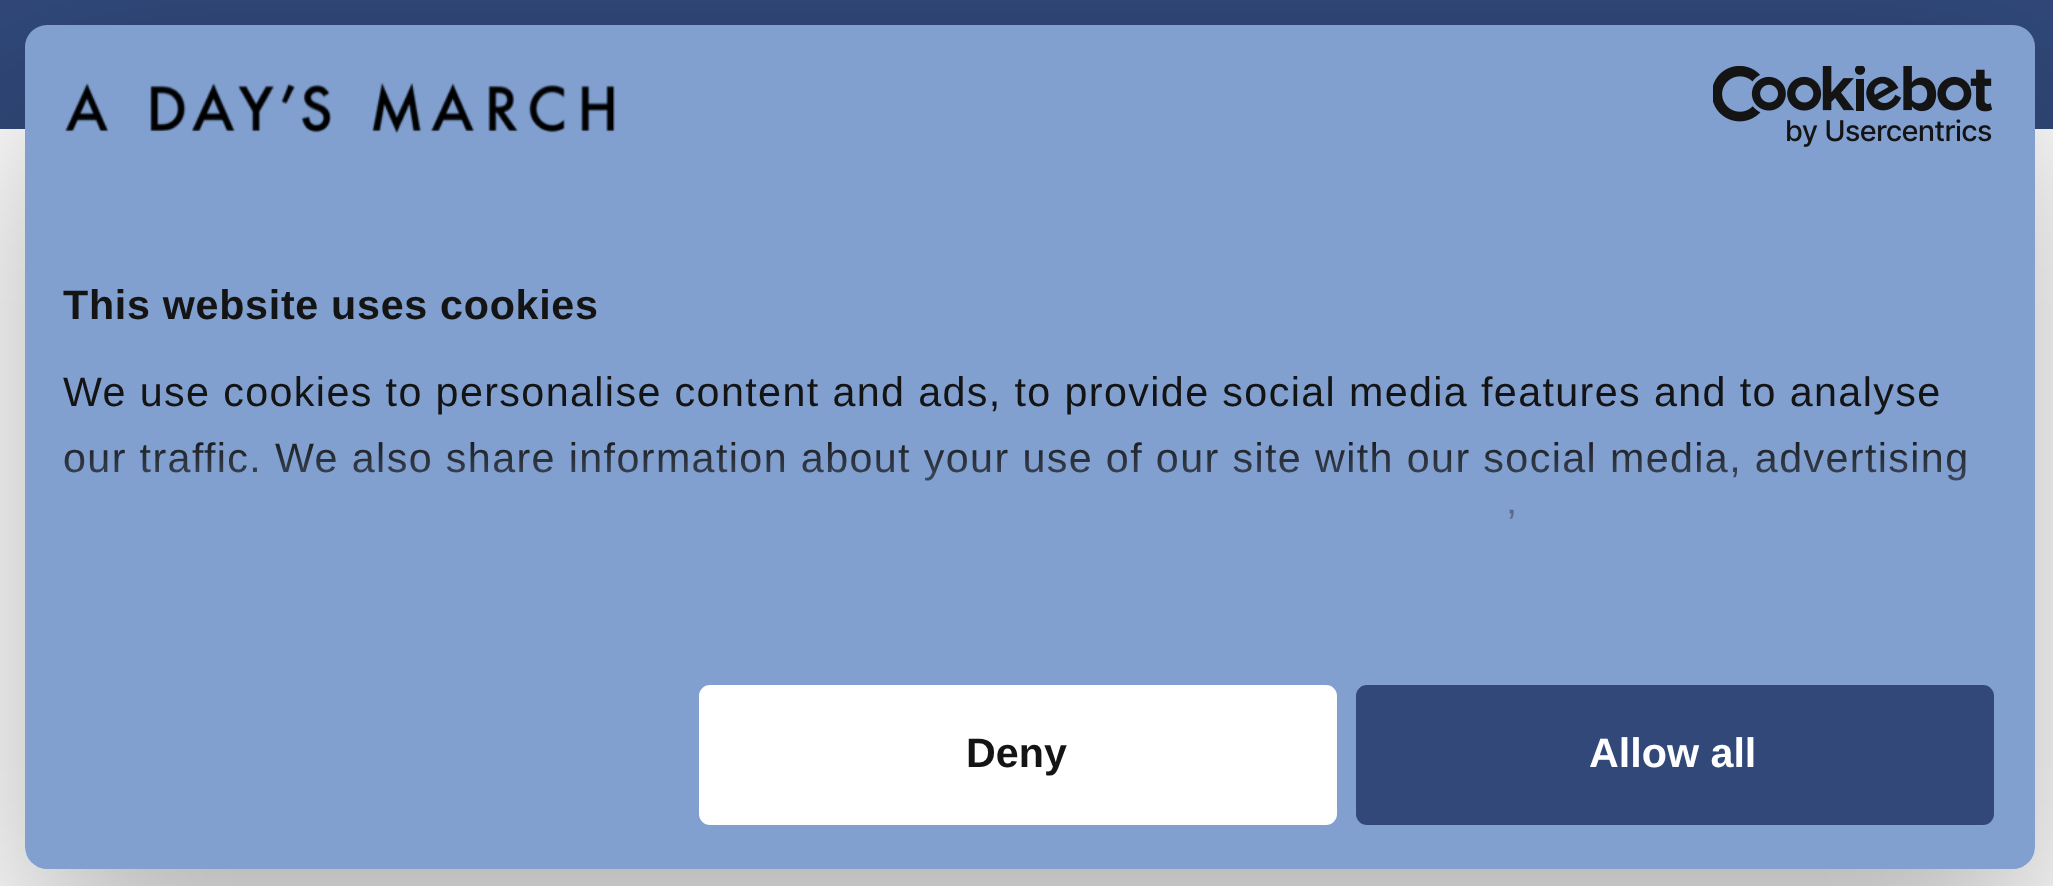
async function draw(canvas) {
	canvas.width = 2053;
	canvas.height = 886;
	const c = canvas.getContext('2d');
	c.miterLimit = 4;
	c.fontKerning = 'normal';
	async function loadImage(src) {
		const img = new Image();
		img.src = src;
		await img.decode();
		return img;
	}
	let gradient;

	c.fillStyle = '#fff';
	c.fillRect(0, 0, 2053, 886);
	c.fillStyle = '#304879';
	c.fillRect(0, 0, 2053, 129);
	c.save();
	c.beginPath();
	c.moveTo(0, 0);
	c.lineTo(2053, 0);
	c.lineTo(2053, 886);
	c.lineTo(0, 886);
	c.closePath();
	c.moveTo(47, 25);
	c.lineTo(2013, 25);
	c.bezierCurveTo(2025, 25, 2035, 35, 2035, 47);
	c.lineTo(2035, 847);
	c.bezierCurveTo(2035, 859, 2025, 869, 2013, 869);
	c.lineTo(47, 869);
	c.bezierCurveTo(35, 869, 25, 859, 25, 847);
	c.lineTo(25, 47);
	c.bezierCurveTo(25, 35, 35, 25, 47, 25);
	c.closePath();
	c.clip('evenodd');
	c.fillStyle = '#0000004d';
	c.filter = 'blur(93.5px)';
	c.beginPath();
	c.roundRect(25, 113, 2010, 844, 22);
	c.fill();
	c.filter = 'none';
	c.restore();
	c.fillStyle = '#81a0d0';
	c.beginPath();
	c.roundRect(25, 25, 2010, 844, 22);
	c.fill();
	c.drawImage(await loadImage('img1.png'), 64, 82, 551, 52);
	c.drawImage(await loadImage('img2.png'), 1713, 66, 280, 81);
	c.letterSpacing = '0.7px';
	c.font = 'bold 41.25px Liberation Sans';
	c.fillStyle = '#141414';
	c.fillText('This website uses cookies', 63, 319);
	c.letterSpacing = '1.38px';
	c.font = '41.25px Liberation Sans';
	for (const [text, x, y] of [
		['We use cookies to personalise content and ads, to provide social media features and to analyse', 63, 406],
		['our traffic. We also share information about your use of our site with our social media, advertising', 63, 472],
		['’', 1507, 538],
	]) {
		c.fillText(text, x, y);
	}
	gradient = c.createLinearGradient(1011, 639, 1011, 433);
	gradient.addColorStop(0, '#81a0d0');
	gradient.addColorStop(0.5, '#81a0d0cc');
	gradient.addColorStop(1, '#81a0d000');
	c.fillStyle = gradient;
	c.fillRect(65, 442, 1901, 77);
	c.save();
	c.beginPath();
	c.roundRect(25, 25, 2010, 844, 22);
	c.clip();
	c.fillStyle = '#81a0d0';
	c.fillRect(36, 866, 1988, 3);
	c.restore();
	c.fillStyle = '#fff';
	c.beginPath();
	c.roundRect(702, 688, 632, 134, 8);
	c.fill();
	c.strokeStyle = '#fff';
	c.lineWidth = 6;
	c.stroke();
	c.letterSpacing = '0px';
	c.font = 'bold 41.25px Liberation Sans';
	c.fillStyle = '#141414';
	c.fillText('Deny', 966, 767);
	c.fillStyle = '#314879';
	c.beginPath();
	c.roundRect(1359, 688, 632, 134, 8);
	c.fill();
	c.strokeStyle = '#314879';
	c.stroke();
	c.fillStyle = '#fff';
	c.fillText('Allow all', 1589, 767);
}

draw(document.querySelector('canvas'));
